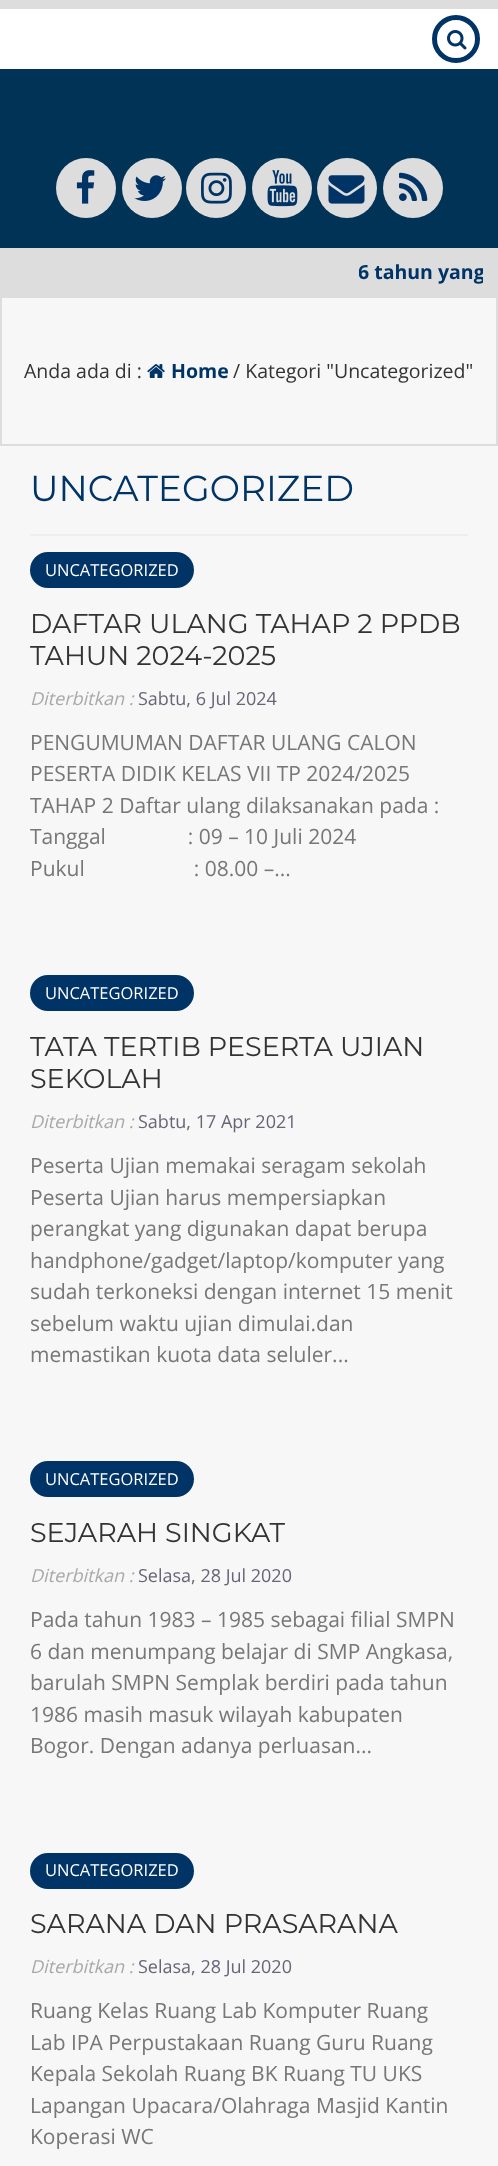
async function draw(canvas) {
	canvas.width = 498;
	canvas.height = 2166;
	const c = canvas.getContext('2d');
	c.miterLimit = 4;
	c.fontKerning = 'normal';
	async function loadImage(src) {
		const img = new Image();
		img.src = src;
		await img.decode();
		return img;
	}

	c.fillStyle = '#f7f7f7';
	c.fillRect(0, 0, 498, 2166);
	c.fillStyle = '#ddd';
	c.fillRect(0, 0, 498, 9);
	c.fillStyle = '#fff';
	c.fillRect(0, 9, 498, 60);
	c.beginPath();
	c.arc(456, 39, 21.5, 0, 2 * Math.PI);
	c.strokeStyle = '#036';
	c.lineWidth = 5;
	c.stroke();
	c.drawImage(await loadImage('img1.png'), 447, 30, 20, 20);
	c.fillStyle = '#003356';
	c.fillRect(0, 69, 498, 179);
	c.fillStyle = '#ddd';
	c.beginPath();
	c.arc(86, 188, 30, 0, 2 * Math.PI);
	c.fill();
	c.drawImage(await loadImage('img2.png'), 76, 170, 19, 34);
	c.beginPath();
	c.arc(152, 188, 30, 0, 2 * Math.PI);
	c.fill();
	c.drawImage(await loadImage('img3.png'), 134, 175, 32, 26);
	c.beginPath();
	c.arc(216, 188, 30, 0, 2 * Math.PI);
	c.fill();
	c.drawImage(await loadImage('img4.png'), 201, 172, 31, 32);
	c.beginPath();
	c.arc(282, 188, 30, 0, 2 * Math.PI);
	c.fill();
	c.drawImage(await loadImage('img5.png'), 267, 170, 31, 37);
	c.beginPath();
	c.arc(347, 188, 30, 0, 2 * Math.PI);
	c.fill();
	c.drawImage(await loadImage('img6.png'), 328, 175, 37, 29);
	c.beginPath();
	c.arc(413, 188, 30, 0, 2 * Math.PI);
	c.fill();
	c.drawImage(await loadImage('img7.png'), 399, 172, 29, 29);
	c.fillRect(0, 248, 498, 48);
	c.save();
	c.beginPath();
	c.rect(359, 257, 124, 39);
	c.clip();
	c.font = 'bold 19.5px Open Sans';
	c.fillStyle = '#036';
	c.fillText('6 tahun yang', 358, 279);
	c.restore();
	c.strokeStyle = '#ddd';
	c.lineWidth = 2;
	c.strokeRect(1, 297, 496, 148);
	c.font = '19.5px Open Sans';
	c.fillStyle = '#333';
	c.fillText('Anda ada di :', 24, 378);
	c.drawImage(await loadImage('img8.png'), 147, 364, 18, 14);
	c.font = 'bold 19.5px Open Sans';
	c.fillStyle = '#036';
	c.fillText('Home', 171, 378);
	c.font = '19.5px Open Sans';
	c.fillStyle = '#333';
	c.fillText('/ Kategori "Uncategorized"', 233, 378);
	c.fillStyle = '#eee';
	c.fillRect(30, 534, 438, 2);
	c.font = '100 36px Montserrat';
	c.fillStyle = '#036';
	c.fillText('UNCATEGORIZED', 30, 501);
	c.beginPath();
	c.roundRect(30, 552, 164, 36, 18);
	c.fill();
	c.font = '16.5px Open Sans';
	c.fillStyle = '#fff';
	c.fillText('UNCATEGORIZED', 45, 576);
	c.font = '100 27px Montserrat';
	c.fillStyle = '#333';
	c.fillText('DAFTAR ULANG TAHAP 2 PPDB', 30, 633);
	c.fillText('TAHUN 2024-2025', 30, 665);
	c.font = 'italic 18px Open Sans';
	c.fillStyle = '#aaa9a9';
	c.fillText('Diterbitkan :', 30, 705);
	c.font = '18px Open Sans';
	c.fillStyle = '#667';
	c.fillText('Sabtu, 6 Jul 2024', 138, 705);
	c.font = '21px Open Sans';
	c.fillStyle = '#777';
	for (const [text, x, y] of [
		['PENGUMUMAN DAFTAR ULANG CALON', 30, 750],
		['PESERTA DIDIK KELAS VII TP 2024/2025', 30, 781],
		['TAHAP 2 Daftar ulang dilaksanakan pada :', 30, 813],
		['Tanggal               : 09 – 10 Juli 2024', 30, 844],
		['Pukul                    : 08.00 –...', 30, 876],
	]) {
		c.fillText(text, x, y);
	}
	c.fillStyle = '#036';
	c.beginPath();
	c.roundRect(30, 975, 164, 36, 18);
	c.fill();
	c.font = '16.5px Open Sans';
	c.fillStyle = '#fff';
	c.fillText('UNCATEGORIZED', 45, 999);
	c.font = '100 27px Montserrat';
	c.fillStyle = '#333';
	c.fillText('TATA TERTIB PESERTA UJIAN', 30, 1056);
	c.fillText('SEKOLAH', 30, 1088);
	c.font = 'italic 18px Open Sans';
	c.fillStyle = '#aaa9a9';
	c.fillText('Diterbitkan :', 30, 1128);
	c.font = '18px Open Sans';
	c.fillStyle = '#667';
	c.fillText('Sabtu, 17 Apr 2021', 138, 1128);
	c.font = '21px Open Sans';
	c.fillStyle = '#777';
	for (const [text, x, y] of [
		['Peserta Ujian memakai seragam sekolah', 30, 1173],
		['Peserta Ujian harus mempersiapkan', 30, 1205],
		['perangkat yang digunakan dapat berupa', 30, 1236],
		['handphone/gadget/laptop/komputer yang', 30, 1268],
		['sudah terkoneksi dengan internet 15 menit', 30, 1299],
		['sebelum waktu ujian dimulai.dan', 30, 1331],
		['memastikan kuota data seluler...', 30, 1362],
	]) {
		c.fillText(text, x, y);
	}
	c.fillStyle = '#036';
	c.beginPath();
	c.roundRect(30, 1461, 164, 36, 18);
	c.fill();
	c.font = '16.5px Open Sans';
	c.fillStyle = '#fff';
	c.fillText('UNCATEGORIZED', 45, 1485);
	c.font = '100 27px Montserrat';
	c.fillStyle = '#333';
	c.fillText('SEJARAH SINGKAT', 30, 1542);
	c.font = 'italic 18px Open Sans';
	c.fillStyle = '#aaa9a9';
	c.fillText('Diterbitkan :', 30, 1582);
	c.font = '18px Open Sans';
	c.fillStyle = '#667';
	c.fillText('Selasa, 28 Jul 2020', 138, 1582);
	c.font = '21px Open Sans';
	c.fillStyle = '#777';
	for (const [text, x, y] of [
		['Pada tahun 1983 – 1985 sebagai filial SMPN', 30, 1627],
		['6 dan menumpang belajar di SMP Angkasa,', 30, 1659],
		['barulah SMPN Semplak berdiri pada tahun', 30, 1690],
		['1986 masih masuk wilayah kabupaten', 30, 1722],
		['Bogor. Dengan adanya perluasan...', 30, 1753],
	]) {
		c.fillText(text, x, y);
	}
	c.fillStyle = '#036';
	c.beginPath();
	c.roundRect(30, 1853, 164, 36, 18);
	c.fill();
	c.font = '16.5px Open Sans';
	c.fillStyle = '#fff';
	c.fillText('UNCATEGORIZED', 45, 1876);
	c.font = '100 27px Montserrat';
	c.fillStyle = '#333';
	c.fillText('SARANA DAN PRASARANA', 30, 1933);
	c.font = 'italic 18px Open Sans';
	c.fillStyle = '#aaa9a9';
	c.fillText('Diterbitkan :', 30, 1973);
	c.font = '18px Open Sans';
	c.fillStyle = '#667';
	c.fillText('Selasa, 28 Jul 2020', 138, 1973);
	c.font = '21px Open Sans';
	c.fillStyle = '#777';
	for (const [text, x, y] of [
		['Ruang Kelas Ruang Lab Komputer Ruang', 30, 2018],
		['Lab IPA Perpustakaan Ruang Guru Ruang', 30, 2050],
		['Kepala Sekolah Ruang BK Ruang TU UKS', 30, 2081],
		['Lapangan Upacara/Olahraga Masjid Kantin', 30, 2113],
		['Koperasi WC', 30, 2144],
	]) {
		c.fillText(text, x, y);
	}
}

draw(document.querySelector('canvas'));
